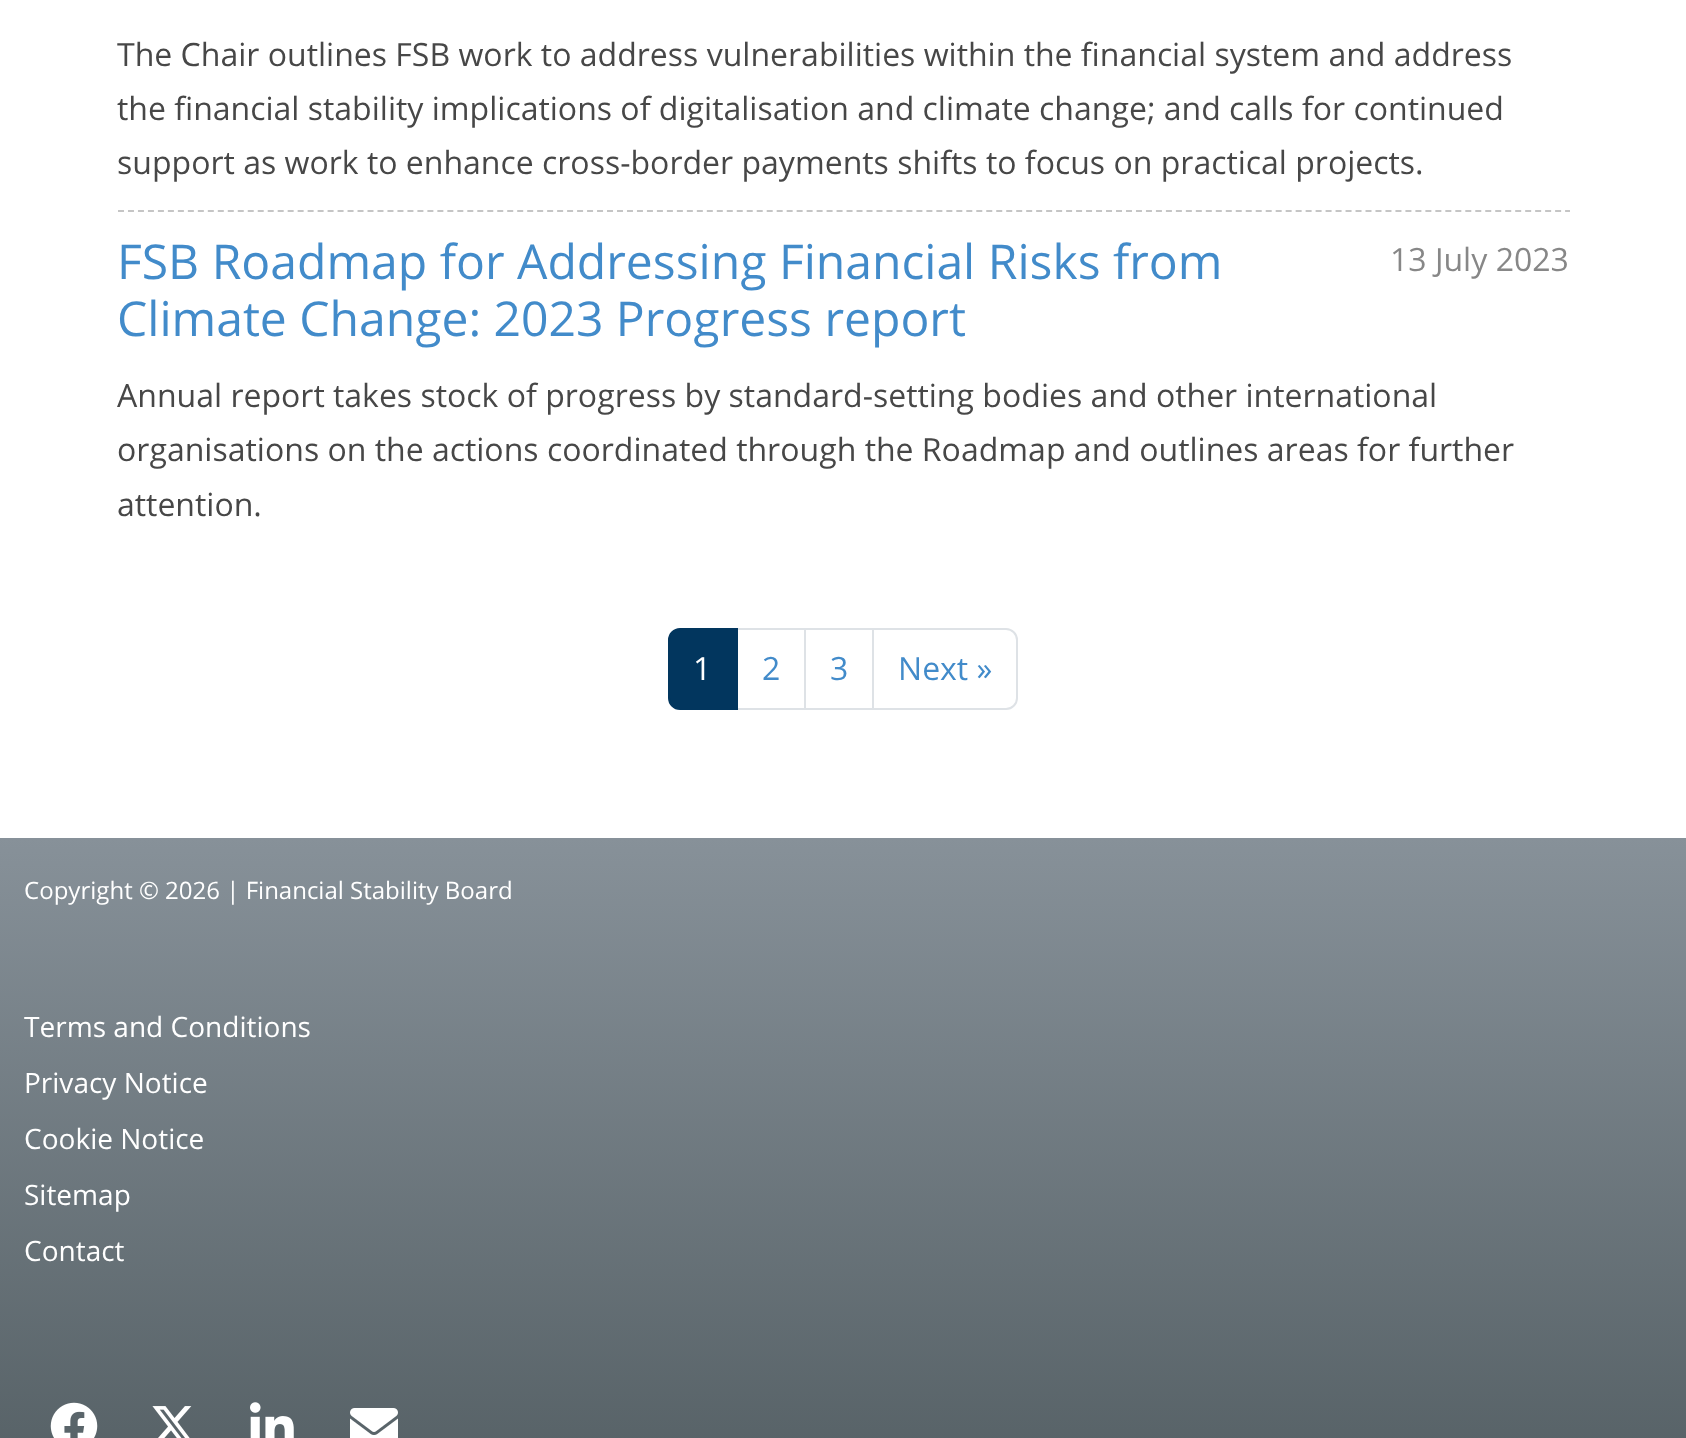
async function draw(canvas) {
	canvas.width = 1686;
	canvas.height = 1438;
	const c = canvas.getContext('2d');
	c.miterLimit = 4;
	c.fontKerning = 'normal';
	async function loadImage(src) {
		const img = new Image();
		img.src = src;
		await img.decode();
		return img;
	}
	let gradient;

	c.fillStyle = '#fff';
	c.fillRect(0, 0, 1686, 1438);
	c.font = '32px Open Sans';
	c.fillStyle = '#474747';
	for (const [text, x, y] of [
		['The Chair outlines FSB work to address vulnerabilities within the financial system and address', 117, 66],
		['the financial stability implications of digitalisation and climate change; and calls for continued', 117, 120],
		['support as work to enhance cross-border payments shifts to focus on practical projects.', 117, 174],
	]) {
		c.fillText(text, x, y);
	}
	c.beginPath();
	c.moveTo(118, 211);
	c.lineTo(1570, 211);
	c.strokeStyle = '#c5c5c5';
	c.lineWidth = 2;
	c.setLineDash([6, 3.98]);
	c.stroke();
	c.font = '48px Open Sans';
	c.fillStyle = '#428bca';
	c.fillText('FSB Roadmap for Addressing Financial Risks from', 117, 279);
	c.fillText('Climate Change: 2023 Progress report', 117, 336);
	c.font = '32px Open Sans';
	c.fillStyle = '#878787';
	c.fillText('13 July 2023', 1390, 271);
	c.fillStyle = '#474747';
	for (const [text, x, y] of [
		['Annual report takes stock of progress by standard-setting bodies and other international', 117, 407],
		['organisations on the actions coordinated through the Roadmap and outlines areas for further', 117, 461],
		['attention.', 117, 516],
	]) {
		c.fillText(text, x, y);
	}
	c.strokeStyle = '#dee2e6';
	c.setLineDash([]);
	c.strokeRect(737, 629, 68, 80);
	c.fillStyle = '#02365e';
	c.beginPath();
	c.roundRect(669, 629, 68, 80, [11, 0, 0, 11]);
	c.fill();
	c.strokeStyle = '#02365e';
	c.stroke();
	c.fillStyle = '#fff';
	c.fillText('1', 693, 680);
	c.fillStyle = '#428bca';
	c.fillText('2', 762, 680);
	c.strokeStyle = '#dee2e6';
	c.strokeRect(805, 629, 68, 80);
	c.fillText('3', 830, 680);
	c.fillStyle = '#fff';
	c.beginPath();
	c.roundRect(873, 629, 144, 80, [0, 11, 11, 0]);
	c.fill();
	c.stroke();
	c.fillStyle = '#428bca';
	c.fillText('Next »', 898, 680);
	gradient = c.createLinearGradient(843, 838, 843, 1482);
	gradient.addColorStop(0, '#879199');
	gradient.addColorStop(1, '#556065');
	c.fillStyle = gradient;
	c.fillRect(0, 838, 1686, 600);
	c.font = '24px Open Sans';
	c.fillStyle = '#fff';
	c.fillText('Copyright © 2026 | Financial Stability Board', 24, 899);
	c.font = '28px Open Sans';
	for (const [text, x, y] of [
		['Terms and Conditions', 24, 1037],
		['Privacy Notice', 24, 1093],
		['Cookie Notice', 24, 1149],
		['Sitemap', 24, 1205],
		['Contact', 24, 1261],
	]) {
		c.fillText(text, x, y);
	}
	c.drawImage(await loadImage('img1.png'), 50, 1402, 48, 36);
	c.drawImage(await loadImage('img2.png'), 152, 1406, 40, 32);
	c.drawImage(await loadImage('img3.png'), 250, 1402, 44, 36);
	c.drawImage(await loadImage('img4.png'), 350, 1408, 48, 30);
}

draw(document.querySelector('canvas'));
